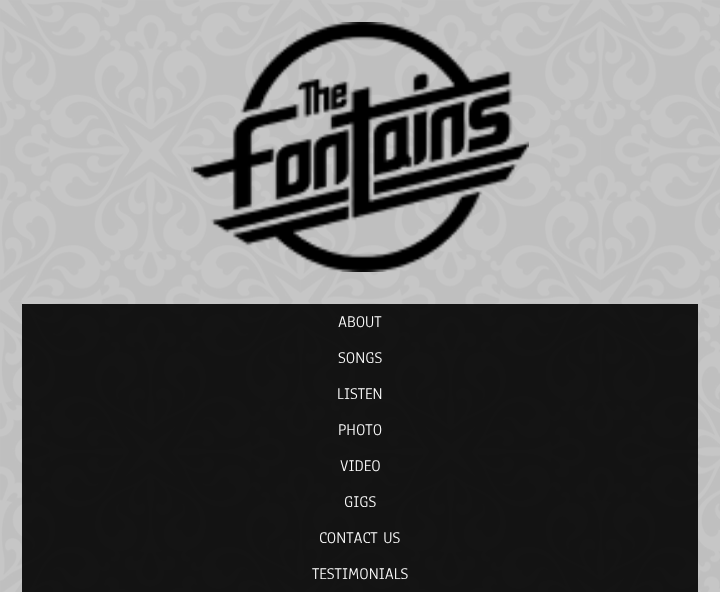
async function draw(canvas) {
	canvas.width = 720;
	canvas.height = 592;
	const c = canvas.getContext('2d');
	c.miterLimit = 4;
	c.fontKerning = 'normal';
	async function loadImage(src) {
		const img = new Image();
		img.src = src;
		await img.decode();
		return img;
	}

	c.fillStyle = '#fff';
	c.fillRect(0, 0, 720, 592);
	c.drawImage(await loadImage('img1.png'), 0, 0, 720, 592);
	c.drawImage(await loadImage('img2.png'), 191, 22, 338, 250);
	c.fillStyle = '#000000e6';
	c.fillRect(22, 304, 676, 36);
	c.font = '17px Anaheim';
	c.fillStyle = '#fff';
	c.fillText('ABOUT', 338, 327);
	c.fillStyle = '#000000e6';
	c.fillRect(22, 340, 676, 36);
	c.fillStyle = '#fff';
	c.fillText('SONGS', 338, 363);
	c.fillStyle = '#000000e6';
	c.fillRect(22, 376, 676, 36);
	c.fillStyle = '#fff';
	c.fillText('LISTEN', 337, 399);
	c.fillStyle = '#000000e6';
	c.fillRect(22, 412, 676, 36);
	c.fillStyle = '#fff';
	c.fillText('PHOTO', 338, 435);
	c.fillStyle = '#000000e6';
	c.fillRect(22, 448, 676, 36);
	c.fillStyle = '#fff';
	c.fillText('VIDEO', 340, 471);
	c.fillStyle = '#000000e6';
	c.fillRect(22, 484, 676, 36);
	c.fillStyle = '#fff';
	c.fillText('GIGS', 344, 507);
	c.fillStyle = '#000000e6';
	c.fillRect(22, 520, 676, 36);
	c.fillStyle = '#fff';
	c.fillText('CONTACT US', 319, 543);
	c.fillStyle = '#000000e6';
	c.fillRect(22, 556, 676, 36);
	c.fillStyle = '#fff';
	c.fillText('TESTIMONIALS', 312, 579);
}

draw(document.querySelector('canvas'));
